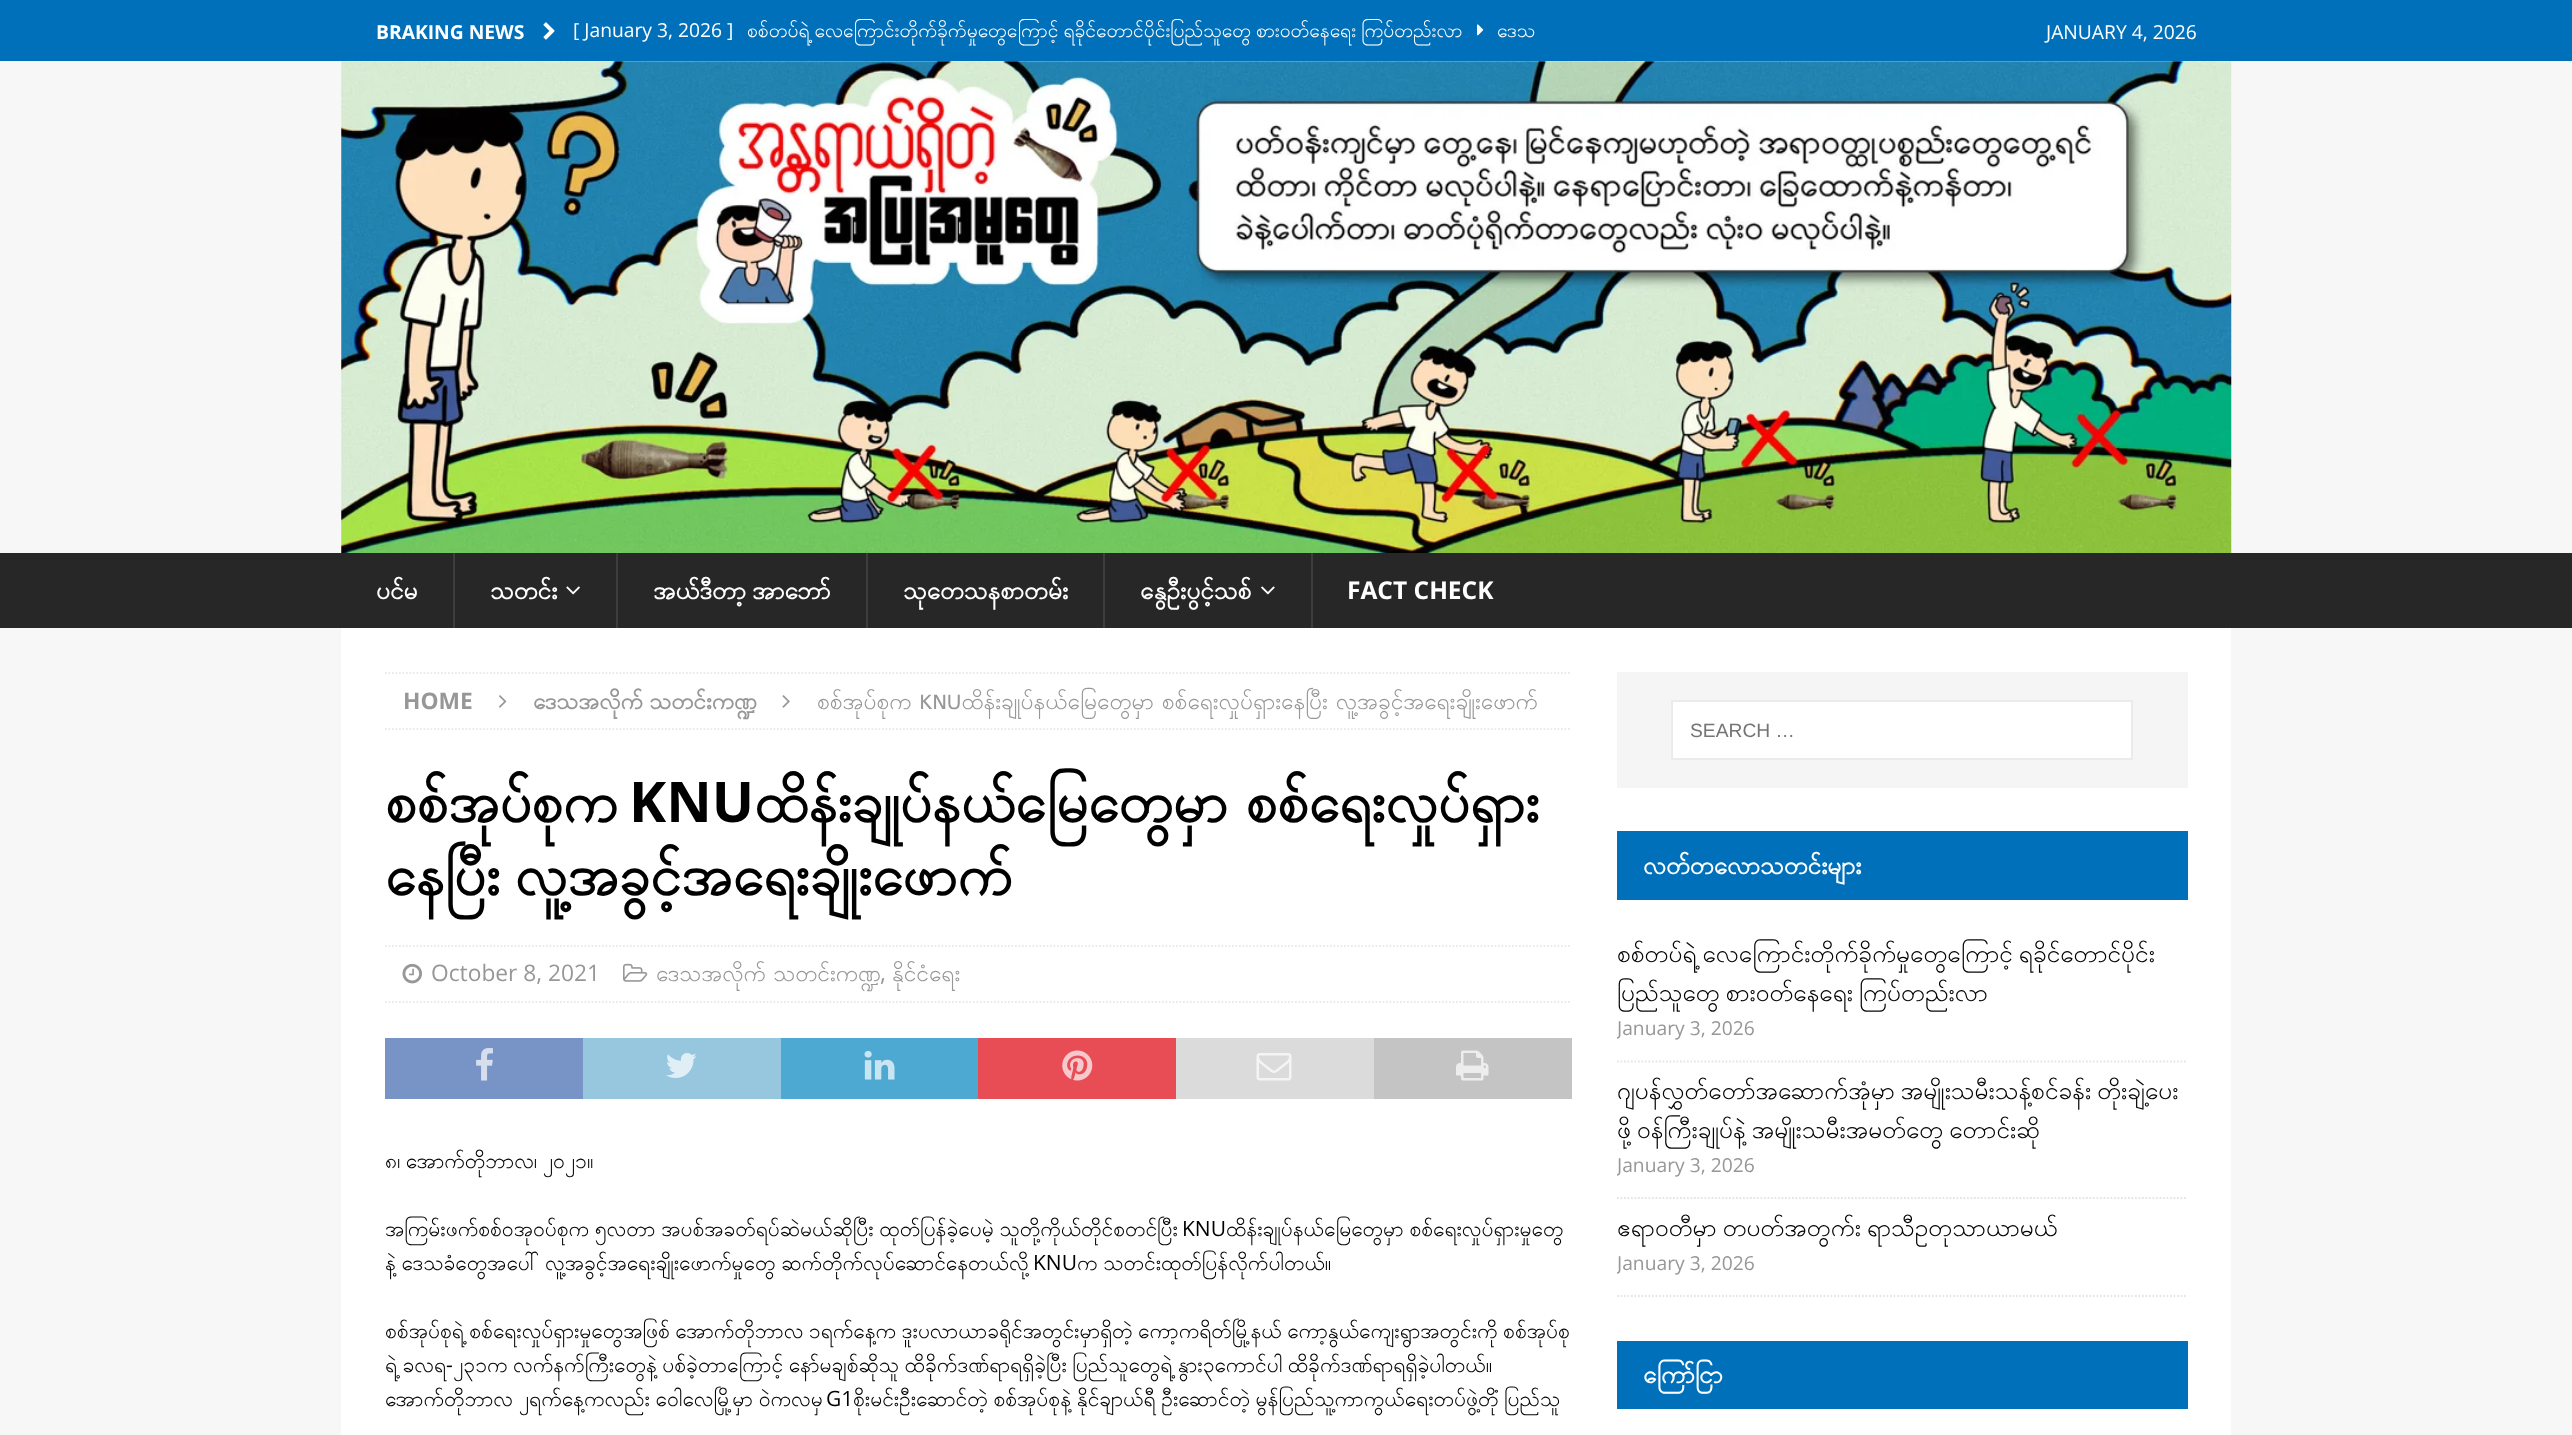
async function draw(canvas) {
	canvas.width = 2572;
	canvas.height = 1435;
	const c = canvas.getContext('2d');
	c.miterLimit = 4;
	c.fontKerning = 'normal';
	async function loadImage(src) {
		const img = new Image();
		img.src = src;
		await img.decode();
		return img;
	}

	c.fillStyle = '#f7f7f7';
	c.fillRect(0, 0, 2572, 1435);
	c.fillStyle = '#0070bb';
	c.fillRect(0, 0, 2572, 61);
	c.font = 'bold 19.25px Open Sans';
	c.fillStyle = '#fff';
	c.fillText('BRAKING NEWS', 376, 39);
	c.drawImage(await loadImage('img1.png'), 543, 22, 12, 18);
	c.font = '19.25px Open Sans';
	c.fillText('[ January 3, 2026 ]', 573, 37);
	c.wordSpacing = '-2px';
	c.font = '19.25px Padauk';
	c.fillText('စစ်တပ်ရဲ့ လေကြောင်းတိုက်ခိုက်မှုတွေကြောင့် ရခိုင်တောင်ပိုင်းပြည်သူတွေ စားဝတ်နေရေး ကြပ်တည်းလာ', 747, 37);
	c.drawImage(await loadImage('img2.png'), 1477, 24, 7, 12);
	c.wordSpacing = '0px';
	c.fillText('ဒေသ', 1497, 37);
	c.font = '19.25px Open Sans';
	c.fillText('JANUARY 4, 2026', 2046, 39);
	c.drawImage(await loadImage('img3.png'), 341, 61, 1891, 492);
	c.fillStyle = '#282728';
	c.fillRect(0, 553, 2572, 75);
	c.font = 'bold 24.5px Padauk';
	c.fillStyle = '#fff';
	c.fillText('ပင်မ', 376, 599);
	c.fillStyle = '#3e3d3e';
	c.fillRect(453, 553, 2, 75);
	c.fillStyle = '#fff';
	c.fillText('သတင်း', 490, 599);
	c.drawImage(await loadImage('img4.png'), 566, 586, 14, 9);
	c.fillStyle = '#3e3d3e';
	c.fillRect(616, 553, 2, 75);
	c.wordSpacing = '-3px';
	c.fillStyle = '#fff';
	c.fillText('အယ်ဒီတာ့ အာဘော်', 653, 599);
	c.fillStyle = '#3e3d3e';
	c.fillRect(866, 553, 2, 75);
	c.wordSpacing = '0px';
	c.fillStyle = '#fff';
	c.fillText('သုတေသနစာတမ်း', 903, 599);
	c.fillStyle = '#3e3d3e';
	c.fillRect(1103, 553, 2, 75);
	c.fillStyle = '#fff';
	c.fillText('နွေဦးပွင့်သစ်', 1140, 599);
	c.drawImage(await loadImage('img5.png'), 1261, 586, 14, 9);
	c.fillStyle = '#3e3d3e';
	c.fillRect(1311, 553, 2, 75);
	c.font = 'bold 24.5px Open Sans';
	c.fillStyle = '#fff';
	c.fillText('FACT CHECK', 1347, 599);
	c.fillRect(341, 628, 1890, 807);
	c.beginPath();
	c.moveTo(385, 673);
	c.lineTo(1571.5, 673);
	c.strokeStyle = '#ebebeb';
	c.lineWidth = 1.8;
	c.setLineDash([1.75, 1.75]);
	c.stroke();
	c.beginPath();
	c.moveTo(385, 729);
	c.lineTo(1571.5, 729);
	c.stroke();
	c.font = 'bold 22.75px Open Sans';
	c.fillStyle = '#979797';
	c.fillText('HOME', 403, 709);
	c.drawImage(await loadImage('img6.png'), 499, 695, 8, 13);
	c.wordSpacing = '-2px';
	c.font = 'bold 22.75px Padauk';
	c.fillText('ဒေသအလိုက် သတင်းကဏ္ဍ', 533, 709);
	c.drawImage(await loadImage('img7.png'), 782, 695, 8, 13);
	c.wordSpacing = '-0.5px';
	c.font = '22.75px Padauk';
	c.fillText('စစ်အုပ်စုက KNUထိန်းချုပ်နယ်မြေတွေမှာ စစ်ရေးလှုပ်ရှားနေပြီး လူ့အခွင့်အရေးချိုးဖောက်', 817, 709);
	c.wordSpacing = '0px';
	c.font = 'bold 56px Padauk';
	c.fillStyle = '#000';
	c.fillText('စစ်အုပ်စုက', 385, 822);
	c.font = 'bold 56px Open Sans';
	c.fillText('KNU', 629, 822);
	c.wordSpacing = '-3px';
	c.font = 'bold 56px Padauk';
	c.fillText('ထိန်းချုပ်နယ်မြေတွေမှာ စစ်ရေးလှုပ်ရှား', 754, 822);
	c.wordSpacing = '-6px';
	c.fillText('နေပြီး လူ့အခွင့်အရေးချိုးဖောက်', 385, 895);
	c.beginPath();
	c.moveTo(385, 946);
	c.lineTo(1571.5, 946);
	c.stroke();
	c.beginPath();
	c.moveTo(385, 1002);
	c.lineTo(1571.5, 1002);
	c.stroke();
	c.drawImage(await loadImage('img8.png'), 402, 963, 20, 21);
	c.wordSpacing = '0px';
	c.font = '22.75px Open Sans';
	c.fillStyle = '#979797';
	c.fillText('October 8, 2021', 431, 981);
	c.drawImage(await loadImage('img9.png'), 623, 963, 25, 19);
	c.wordSpacing = '-1px';
	c.font = '22.75px Padauk';
	c.fillText('ဒေသအလိုက် သတင်းကဏ္ဍ', 656, 981);
	c.wordSpacing = '0px';
	c.font = '22.75px Open Sans';
	c.fillText(',', 880, 981);
	c.font = '22.75px Padauk';
	c.fillText('နိုင်ငံရေး', 892, 981);
	c.fillStyle = '#7893c6';
	c.fillRect(385, 1038, 198, 61);
	c.drawImage(await loadImage('img10.png'), 476, 1048, 17, 33);
	c.fillStyle = '#97c6df';
	c.fillRect(583, 1038, 198, 61);
	c.drawImage(await loadImage('img11.png'), 666, 1053, 31, 25);
	c.fillStyle = '#4da9d2';
	c.fillRect(781, 1038, 197, 61);
	c.drawImage(await loadImage('img12.png'), 864, 1050, 31, 30);
	c.fillStyle = '#e84d56';
	c.fillRect(978, 1038, 198, 61);
	c.drawImage(await loadImage('img13.png'), 1062, 1050, 31, 31);
	c.fillStyle = '#dbdbdb';
	c.fillRect(1176, 1038, 198, 61);
	c.drawImage(await loadImage('img14.png'), 1256, 1053, 36, 28);
	c.fillStyle = '#c4c4c4';
	c.fillRect(1374, 1038, 198, 61);
	c.drawImage(await loadImage('img15.png'), 1456, 1050, 33, 31);
	c.wordSpacing = '-2.25px';
	c.font = '21px Padauk';
	c.fillStyle = '#000';
	c.fillText('၈၊ အောက်တိုဘာလ၊ ၂၀၂၁။', 385, 1168);
	c.wordSpacing = '-2px';
	c.fillText('အကြမ်းဖက်စစ်ဝအုဝပ်စုက ၅လတာ အပစ်အခတ်ရပ်ဆဲမယ်ဆိုပြီး ထုတ်ပြန်ခဲ့ပေမဲ့ သူတို့ကိုယ်တိုင်စတင်ပြီး', 385, 1236);
	c.wordSpacing = '0px';
	c.font = '21px Open Sans';
	c.fillText('KNU', 1182, 1236);
	c.wordSpacing = '-2px';
	c.font = '21px Padauk';
	c.fillText('ထိန်းချုပ်နယ်မြေတွေမှာ စစ်ရေးလှုပ်ရှားမှုတွေ', 1226, 1236);
	c.save();
	c.beginPath();
	c.rect(385, 672, 1187, 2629);
	c.clip();
	c.fillText('နဲ့ ဒေသခံတွေအပေါ် လူ့အခွင့်အရေးချိုးဖောက်မှုတွေ ဆက်တိုက်လုပ်ဆောင်နေတယ်လို့', 385, 1270);
	c.restore();
	c.wordSpacing = '0px';
	c.font = '21px Open Sans';
	c.fillText('KNU', 1033, 1270);
	c.wordSpacing = '-2px';
	c.font = '21px Padauk';
	c.fillText('က သတင်းထုတ်ပြန်လိုက်ပါတယ်။', 1077, 1270);
	c.wordSpacing = '-2.25px';
	c.fillText('စစ်အုပ်စုရဲ့ စစ်ရေးလှုပ်ရှားမှုတွေအဖြစ် အောက်တိုဘာလ ၁ရက်နေ့က ဒူးပလာယာခရိုင်အတွင်းမှာရှိတဲ့ ကော့ကရိတ်မြို့နယ် ကော့နွယ်ကျေးရွာအတွင်းကို စစ်အုပ်စု', 385, 1338);
	c.save();
	c.beginPath();
	c.rect(385, 672, 1187, 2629);
	c.clip();
	c.fillText('ရဲ့ ခလရ', 385, 1372);
	c.restore();
	c.wordSpacing = '0px';
	c.font = '21px Open Sans';
	c.fillText('-', 446, 1372);
	c.wordSpacing = '-2.25px';
	c.font = '21px Padauk';
	c.fillText('၂၃၁က လက်နက်ကြီးတွေနဲ့ ပစ်ခဲ့တာကြောင့် နော်မချစ်ဆိုသူ ထိခိုက်ဒဏ်ရာရရှိခဲ့ပြီး ပြည်သူတွေရဲ့ နွား၃ကောင်ပါ ထိခိုက်ဒဏ်ရာရရှိခဲ့ပါတယ်။', 453, 1372);
	c.save();
	c.beginPath();
	c.rect(385, 672, 1187, 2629);
	c.clip();
	c.wordSpacing = '-2px';
	c.fillText('အောက်တိုဘာလ ၂ရက်နေ့ကလည်း ဝေါလေမြို့မှာ ဝဲကလမှ', 385, 1406);
	c.restore();
	c.wordSpacing = '0px';
	c.font = '21px Open Sans';
	c.fillText('G1', 826, 1406);
	c.wordSpacing = '-2px';
	c.font = '21px Padauk';
	c.fillText('စိုးမင်းဦးဆောင်တဲ့ စစ်အုပ်စုနဲ့ နိုင်ချာယ်ရီ ဦးဆောင်တဲ့ မွန်ပြည်သူ့ကာကွယ်ရေးတပ်ဖွဲ့တိုံ ပြည်သူ', 853, 1406);
	c.fillStyle = '#f5f5f5';
	c.fillRect(1617, 672, 571, 116);
	c.fillStyle = '#fff';
	c.beginPath();
	c.rect(1672, 701, 460, 58);
	c.fill();
	c.lineWidth = 2;
	c.setLineDash([]);
	c.stroke();
	c.wordSpacing = '0px';
	c.font = '19.25px Liberation Sans';
	c.fillStyle = '#757575';
	c.fillText('SEARCH …', 1690, 737);
	c.fillStyle = '#0070bb';
	c.fillRect(1617, 831, 571, 69);
	c.font = 'bold 24.5px Padauk';
	c.fillStyle = '#fff';
	c.fillText('လတ်တလောသတင်းများ', 1643, 874);
	c.beginPath();
	c.moveTo(1617, 1061.5);
	c.lineTo(2187.5, 1061.5);
	c.strokeStyle = '#e5e5e5';
	c.lineWidth = 1.8;
	c.setLineDash([1.75, 1.75]);
	c.stroke();
	c.wordSpacing = '-3px';
	c.font = '24.5px Padauk';
	c.fillStyle = '#000';
	c.fillText('စစ်တပ်ရဲ့ လေကြောင်းတိုက်ခိုက်မှုတွေကြောင့် ရခိုင်တောင်ပိုင်း', 1617, 962);
	c.fillText('ပြည်သူတွေ စားဝတ်နေရေး ကြပ်တည်းလာ', 1617, 1001);
	c.save();
	c.beginPath();
	c.rect(1617, 831, 571, 466);
	c.clip();
	c.wordSpacing = '0px';
	c.font = '19.25px Open Sans';
	c.fillStyle = '#979797';
	c.fillText('January 3, 2026', 1617, 1035);
	c.restore();
	c.beginPath();
	c.moveTo(1617, 1198);
	c.lineTo(2187.5, 1198);
	c.stroke();
	c.save();
	c.beginPath();
	c.rect(1617, 831, 571, 466);
	c.clip();
	c.fillText('ဂျပန်လွှတ်တော်အဆောက်အုံမှာ အမျိုးသမီးသန့်စင်ခန်း တိုးချဲ့ပေး', 1617, 1099);
	c.fillText('ဖို့ ဝန်ကြီးချုပ်နဲ့ အမျိုးသမီးအမတ်တွေ တောင်းဆို', 1617, 1138);
	c.wordSpacing = '0px';
	c.font = '19.25px Open Sans';
	c.fillStyle = '#979797';
	c.fillText('January 3, 2026', 1617, 1172);
	c.restore();
	c.beginPath();
	c.moveTo(1617, 1296);
	c.lineTo(2187.5, 1296);
	c.stroke();
	c.fillText('ဧရာဝတီမှာ တပတ်အတွက်း ရာသီဥတုသာယာမယ်', 1617, 1236);
	c.save();
	c.beginPath();
	c.rect(1617, 831, 571, 466);
	c.clip();
	c.wordSpacing = '0px';
	c.font = '19.25px Open Sans';
	c.fillStyle = '#979797';
	c.fillText('January 3, 2026', 1617, 1270);
	c.restore();
	c.fillStyle = '#0070bb';
	c.fillRect(1617, 1341, 571, 68);
	c.wordSpacing = '0px';
	c.font = 'bold 24.5px Padauk';
	c.fillStyle = '#fff';
	c.fillText('ကြော်ငြာ', 1643, 1383);
}

draw(document.querySelector('canvas'));
